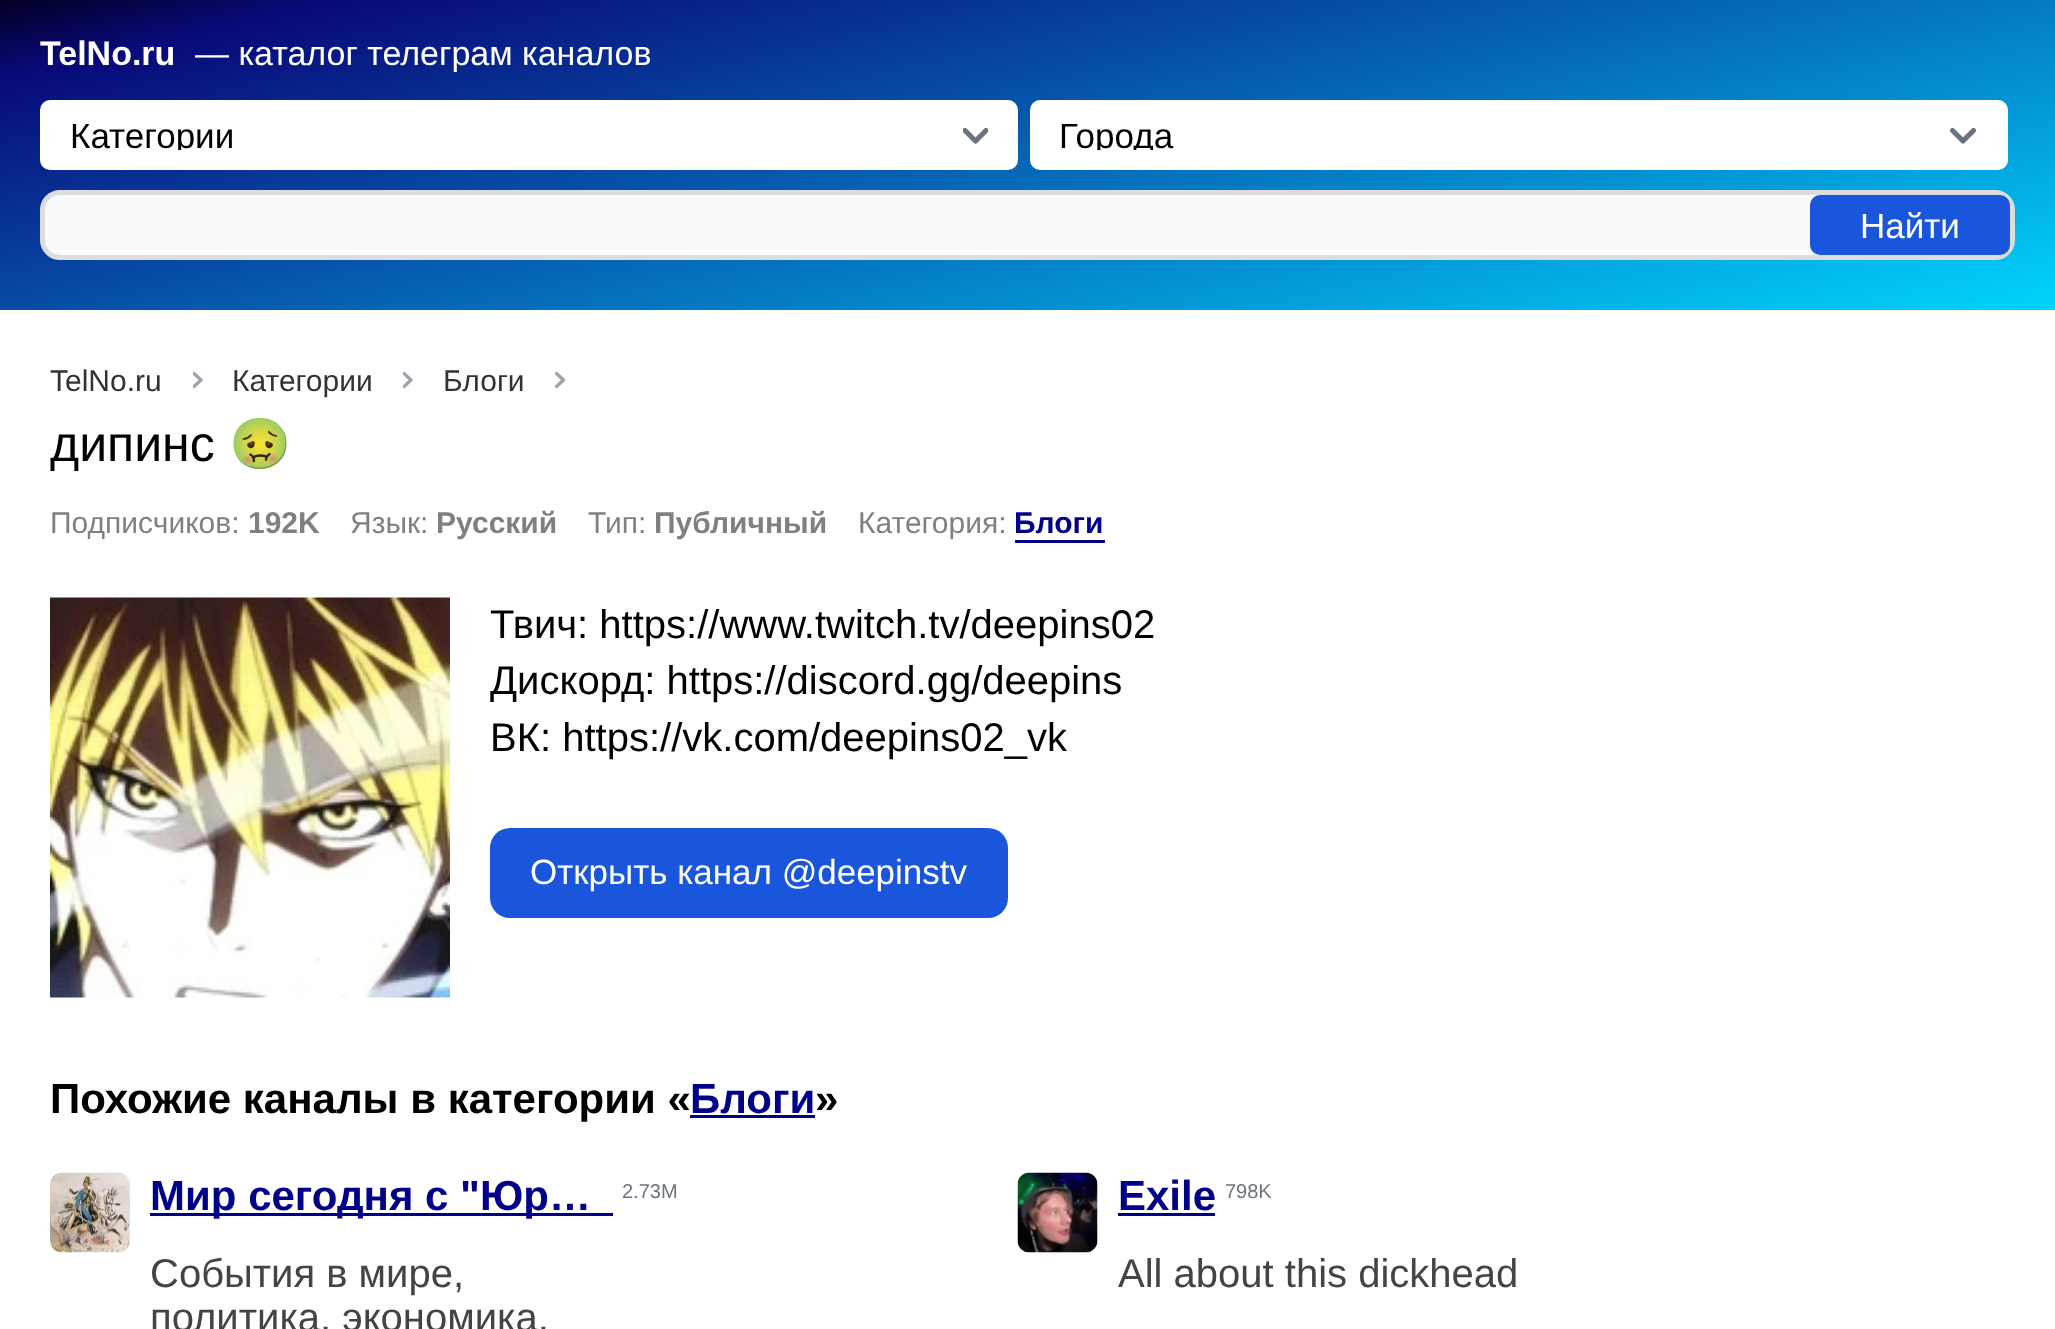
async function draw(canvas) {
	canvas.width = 2055;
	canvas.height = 1329;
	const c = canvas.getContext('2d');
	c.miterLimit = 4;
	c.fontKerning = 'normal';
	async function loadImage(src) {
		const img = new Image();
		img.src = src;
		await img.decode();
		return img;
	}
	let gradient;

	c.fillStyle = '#fff';
	c.fillRect(0, 0, 2055, 1329);
	gradient = c.createLinearGradient(942, -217, 1113, 527);
	gradient.addColorStop(0, '#020024');
	gradient.addColorStop(0.1, '#090979');
	gradient.addColorStop(1, '#00d4ff');
	c.fillStyle = gradient;
	c.fillRect(0, 0, 2055, 310);
	c.font = 'bold 34px Liberation Sans';
	c.fillStyle = '#fff';
	c.fillText('TelNo.ru', 40, 65);
	c.font = '34px Liberation Sans';
	c.fillText('— каталог телеграм каналов', 195, 65);
	c.beginPath();
	c.roundRect(40, 100, 978, 70, 10);
	c.fill();
	c.save();
	c.beginPath();
	c.rect(963, 123, 25, 27);
	c.clip();
	c.beginPath();
	c.moveTo(965, 130.5);
	c.lineTo(975.5, 141);
	c.lineTo(986, 130.5);
	c.strokeStyle = '#6b7280';
	c.lineWidth = 5.2;
	c.lineCap = 'round';
	c.lineJoin = 'round';
	c.stroke();
	c.restore();
	c.save();
	c.beginPath();
	c.rect(70, 120, 848, 30);
	c.clip();
	c.font = '35px Liberation Sans';
	c.fillStyle = '#000';
	c.fillText('Категории', 70, 148);
	c.restore();
	c.beginPath();
	c.roundRect(1030, 100, 978, 70, 10);
	c.fill();
	c.beginPath();
	c.moveTo(1952.5, 130.5);
	c.lineTo(1963, 141);
	c.lineTo(1973.5, 130.5);
	c.strokeStyle = '#6b7280';
	c.lineWidth = 5.2;
	c.lineCap = 'round';
	c.lineJoin = 'round';
	c.stroke();
	c.save();
	c.beginPath();
	c.rect(1060, 120, 848, 30);
	c.clip();
	c.font = '35px Liberation Sans';
	c.fillStyle = '#000';
	c.fillText('Города', 1059, 148);
	c.restore();
	c.fillStyle = '#f9fafb';
	c.beginPath();
	c.roundRect(42.5, 192.5, 1970, 65, 17.5);
	c.fill();
	c.strokeStyle = '#ddd';
	c.lineWidth = 5;
	c.lineJoin = 'miter';
	c.stroke();
	c.fillStyle = '#1a56db';
	c.beginPath();
	c.roundRect(1810, 195, 200, 60, 10);
	c.fill();
	c.font = '35px Liberation Sans';
	c.fillStyle = '#fff';
	c.fillText('Найти', 1860, 238);
	c.font = '30px Liberation Sans';
	c.fillStyle = '#333';
	c.fillText('TelNo.ru', 50, 391);
	c.save();
	c.beginPath();
	c.rect(193, 365, 10, 30);
	c.clip();
	c.beginPath();
	c.moveTo(194, 386.5);
	c.lineTo(201, 380);
	c.lineTo(194, 373.5);
	c.strokeStyle = '#9ca3af';
	c.lineWidth = 3.3;
	c.lineJoin = 'round';
	c.stroke();
	c.restore();
	c.fillText('Категории', 232, 391);
	c.save();
	c.beginPath();
	c.rect(403, 365, 10, 30);
	c.clip();
	c.beginPath();
	c.moveTo(404, 386.5);
	c.lineTo(411, 380);
	c.lineTo(404, 373.5);
	c.strokeStyle = '#9ca3af';
	c.lineWidth = 3.3;
	c.lineJoin = 'round';
	c.stroke();
	c.restore();
	c.fillText('Блоги', 443, 391);
	c.beginPath();
	c.moveTo(556.5, 386.5);
	c.lineTo(563.5, 380);
	c.lineTo(556.5, 373.5);
	c.strokeStyle = '#9ca3af';
	c.lineWidth = 3.3;
	c.lineJoin = 'round';
	c.stroke();
	c.font = '50px Liberation Sans';
	c.fillStyle = '#000';
	c.fillText('дипинс', 50, 461);
	c.font = '50px Noto Color Emoji';
	c.fillText('🤢', 229, 461);
	c.font = '30px Liberation Sans';
	c.fillStyle = '#808080';
	c.fillText('Подписчиков:', 50, 533);
	c.font = 'bold 30px Liberation Sans';
	c.fillText('192K', 248, 533);
	c.font = '30px Liberation Sans';
	c.fillText('Язык:', 350, 533);
	c.font = 'bold 30px Liberation Sans';
	c.fillText('Русский', 436, 533);
	c.font = '30px Liberation Sans';
	c.fillText('Тип:', 588, 533);
	c.font = 'bold 30px Liberation Sans';
	c.fillText('Публичный', 654, 533);
	c.font = '30px Liberation Sans';
	c.fillText('Категория:', 858, 533);
	c.font = 'bold 30px Liberation Sans';
	c.fillStyle = '#00008b';
	c.fillText('Блоги', 1014, 533);
	c.fillRect(1015, 540, 90, 3);
	c.drawImage(await loadImage('img1.png'), 50, 597, 400, 401);
	c.font = '40px Liberation Sans';
	c.fillStyle = '#000';
	for (const [text, x, y] of [
		['Твич: https://www.twitch.tv/deepins02', 490, 638],
		['Дискорд: https://discord.gg/deepins', 490, 694],
		['ВК: https://vk.com/deepins02_vk', 490, 751],
	]) {
		c.fillText(text, x, y);
	}
	c.fillStyle = '#1a56db';
	c.beginPath();
	c.roundRect(490, 828, 518, 90, 20);
	c.fill();
	c.font = '35px Liberation Sans';
	c.fillStyle = '#fff';
	c.fillText('Открыть канал @deepinstv', 530, 884);
	c.font = 'bold 42px Liberation Sans';
	c.fillStyle = '#000';
	c.fillText('Похожие каналы в категории «', 50, 1113);
	c.fillStyle = '#00008b';
	c.fillText('Блоги', 690, 1113);
	c.fillRect(690, 1115, 125, 3);
	c.fillStyle = '#000';
	c.fillText('»', 815, 1113);
	c.drawImage(await loadImage('img2.png'), 50, 1172, 80, 81);
	c.fillStyle = '#00008b';
	c.fillRect(150, 1213, 463, 3);
	c.fillText('Мир сегодня с "Юр…', 150, 1210);
	c.font = '20px Liberation Sans';
	c.fillStyle = '#6b7280';
	c.fillText('2.73M', 622, 1198);
	c.font = '40px Liberation Sans';
	c.fillStyle = '#444';
	c.fillText('События в мире,', 150, 1287);
	c.fillText('политика, экономика,', 150, 1331);
	c.drawImage(await loadImage('img3.png'), 1017, 1172, 81, 81);
	c.font = 'bold 42px Liberation Sans';
	c.fillStyle = '#00008b';
	c.fillText('Exile', 1118, 1210);
	c.fillRect(1118, 1213, 97, 3);
	c.font = '20px Liberation Sans';
	c.fillStyle = '#6b7280';
	c.fillText('798K', 1225, 1198);
	c.font = '40px Liberation Sans';
	c.fillStyle = '#444';
	c.fillText('All about this dickhead', 1118, 1287);
}

draw(document.querySelector('canvas'));
